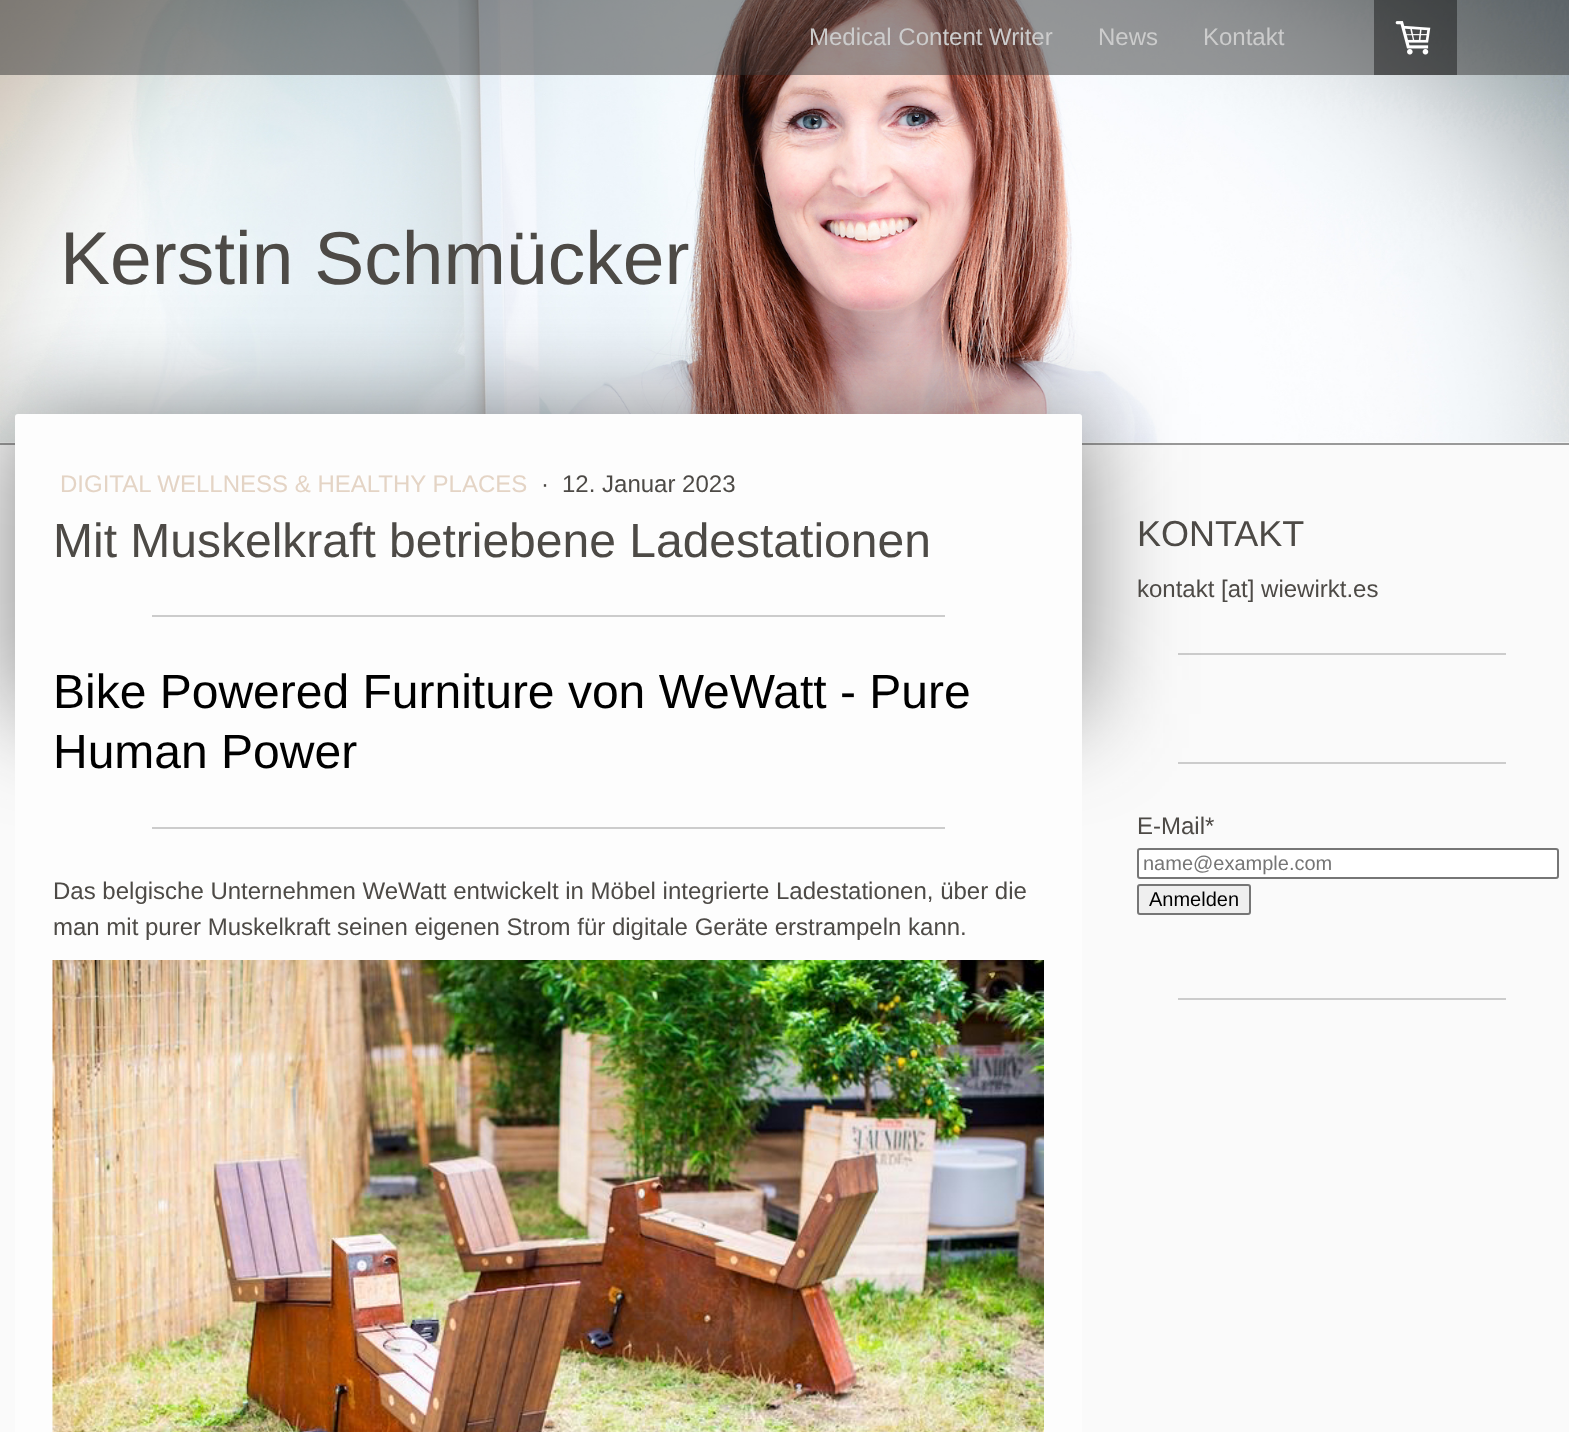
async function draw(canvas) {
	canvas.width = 1569;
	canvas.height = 1432;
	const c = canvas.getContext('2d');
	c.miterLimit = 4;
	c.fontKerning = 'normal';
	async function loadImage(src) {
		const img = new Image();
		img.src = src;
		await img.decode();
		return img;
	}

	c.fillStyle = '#fff';
	c.fillRect(0, 0, 1569, 1432);
	c.drawImage(await loadImage('img1.png'), 0, 0, 1569, 443);
	c.fillStyle = '#33333380';
	c.fillRect(0, 0, 1569, 75);
	c.font = '24px Liberation Sans';
	c.fillStyle = '#ccc';
	for (const [text, x, y] of [
		['Medical Content Writer', 809, 45],
		['News', 1098, 45],
		['Kontakt', 1203, 45],
	]) {
		c.fillText(text, x, y);
	}
	c.fillStyle = '#00000066';
	c.fillRect(1374, 0, 83, 75);
	c.drawImage(await loadImage('img2.png'), 1395, 21, 36, 34);
	c.font = '75px Liberation Sans';
	c.fillStyle = '#4d4a46';
	c.fillText('Kerstin Schmücker', 60, 284);
	for (const [x, y, w, h, color] of [
		[0, 445, 1569, 987, '#fafafa'],
		[0, 443, 1569, 2, '#999'],
		[1178, 653, 328, 2, '#ccc'],
		[1178, 762, 328, 2, '#ccc'],
	]) {
		c.fillStyle = color;
		c.fillRect(x, y, w, h);
	}
	c.fillStyle = '#fff';
	c.beginPath();
	c.roundRect(1138, 849, 420, 29, 2);
	c.fill();
	c.strokeStyle = '#767676';
	c.lineWidth = 2;
	c.stroke();
	c.fillStyle = '#33333399';
	c.filter = 'blur(51px)';
	c.beginPath();
	c.rect(15, 414, 1067, 300);
	c.fill();
	c.filter = 'none';
	c.fillStyle = '#fdfdfd';
	c.beginPath();
	c.roundRect(15, 414, 1067, 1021, 3);
	c.fill();
	c.font = '24px Liberation Sans';
	c.fillStyle = '#e4d4c5';
	c.fillText('DIGITAL WELLNESS & HEALTHY PLACES', 60, 492);
	c.fillStyle = '#4d4a46';
	c.fillText('·', 541, 492);
	c.fillText('12. Januar 2023', 562, 492);
	c.font = '48px Liberation Sans';
	c.fillText('Mit Muskelkraft betriebene Ladestationen', 53, 557);
	c.fillStyle = '#ccc';
	c.fillRect(152, 615, 793, 2);
	c.fillStyle = '#000';
	c.fillText('Bike Powered Furniture von WeWatt - Pure', 53, 708);
	c.fillText('Human Power', 53, 768);
	c.fillStyle = '#ccc';
	c.fillRect(152, 827, 793, 2);
	c.font = '24px Liberation Sans';
	c.fillStyle = '#4d4a46';
	c.fillText('Das belgische Unternehmen WeWatt entwickelt in Möbel integrierte Ladestationen, über die', 53, 899);
	c.fillText('man mit purer Muskelkraft seinen eigenen Strom für digitale Geräte erstrampeln kann.', 53, 935);
	c.drawImage(await loadImage('img3.png'), 52, 960, 992, 472);
	c.font = '36px Liberation Sans';
	c.fillText('KONTAKT', 1137, 546);
	c.font = '24px Liberation Sans';
	c.fillText('kontakt [at] wiewirkt.es', 1137, 597);
	c.fillText('E-Mail*', 1137, 834);
	c.font = '20px Liberation Sans';
	c.fillStyle = '#757575';
	c.fillText('name@example.com', 1143, 870);
	c.fillStyle = '#efefef';
	c.beginPath();
	c.roundRect(1138, 885, 112, 29, 2);
	c.fill();
	c.stroke();
	c.fillStyle = '#000';
	c.fillText('Anmelden', 1149, 906);
	c.fillStyle = '#ccc';
	c.fillRect(1178, 998, 328, 2);
}

draw(document.querySelector('canvas'));
